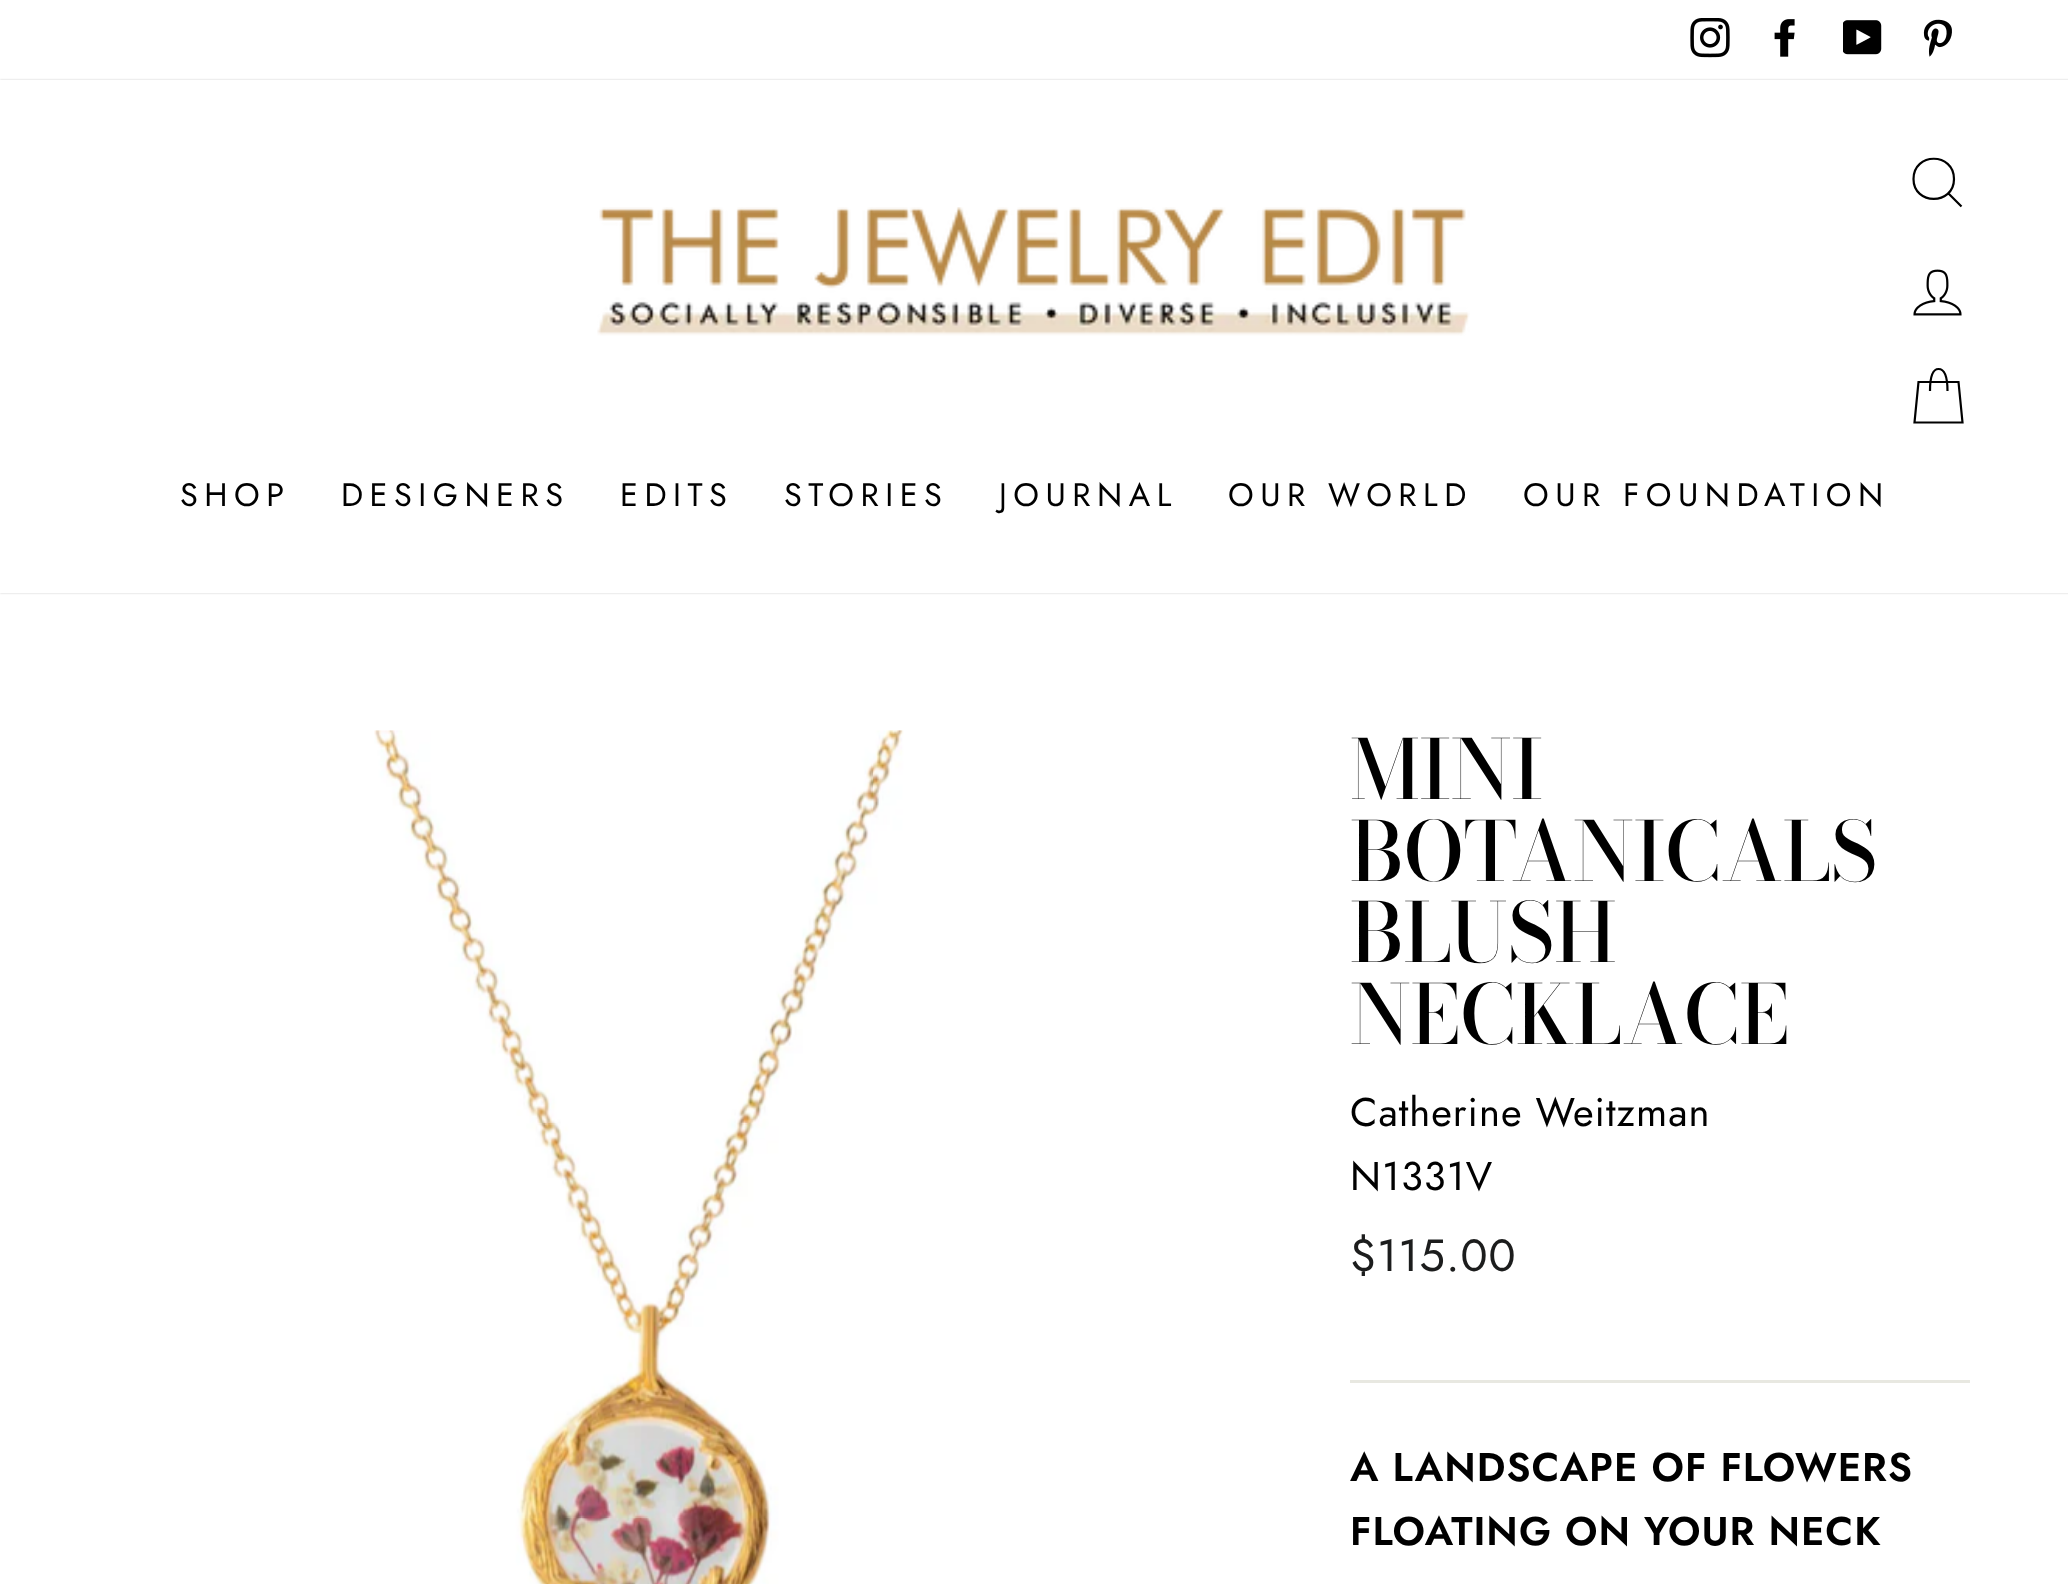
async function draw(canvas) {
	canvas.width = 2068;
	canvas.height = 1584;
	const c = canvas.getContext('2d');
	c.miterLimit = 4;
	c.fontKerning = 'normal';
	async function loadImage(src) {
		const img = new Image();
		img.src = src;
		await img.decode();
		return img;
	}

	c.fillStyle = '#fff';
	c.fillRect(0, 0, 2068, 1584);
	c.drawImage(await loadImage('img1.png'), 1690, 18, 40, 40);
	c.drawImage(await loadImage('img2.png'), 1774, 19, 21, 38);
	c.drawImage(await loadImage('img3.png'), 1843, 20, 39, 35);
	c.drawImage(await loadImage('img4.png'), 1923, 19, 29, 38);
	c.fillStyle = '#00000033';
	c.filter = 'blur(1px)';
	c.beginPath();
	c.rect(0, 80, 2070, 513);
	c.fill();
	c.filter = 'none';
	c.fillStyle = '#fff';
	c.fillRect(0, 80, 2068, 513);
	c.drawImage(await loadImage('img5.png'), 597, 207, 873, 129);
	c.beginPath();
	c.moveTo(1954, 179);
	c.bezierCurveTo(1954, 205.5, 1913.5, 205.5, 1913.5, 179);
	c.bezierCurveTo(1913.5, 152, 1954, 152, 1954, 179);
	c.closePath();
	c.moveTo(1961.5, 206.5);
	c.lineTo(1948.5, 193.5);
	c.strokeStyle = '#000';
	c.lineWidth = 2.2;
	c.stroke();
	c.drawImage(await loadImage('img6.png'), 1913, 269, 49, 47);
	c.beginPath();
	c.moveTo(1930, 391);
	c.bezierCurveTo(1930, 373.5, 1933.5, 369, 1938.5, 369);
	c.bezierCurveTo(1943.5, 369, 1947.5, 373.5, 1947.5, 391);
	c.moveTo(1918.5, 382);
	c.lineTo(1958.5, 382);
	c.lineTo(1962.5, 422.5);
	c.lineTo(1914.5, 422.5);
	c.closePath();
	c.stroke();
	c.letterSpacing = '6.5px';
	c.font = '32.5px Jost';
	c.fillStyle = '#000';
	for (const [text, x, y] of [
		['SHOP', 180, 506],
		['DESIGNERS', 341, 506],
		['EDITS', 620, 506],
		['STORIES', 784, 506],
		['JOURNAL', 999, 506],
		['OUR WORLD', 1228, 506],
		['OUR FOUNDATION', 1523, 506],
	]) {
		c.fillText(text, x, y);
	}
	c.drawImage(await loadImage('img7.png'), 374, 730, 530, 854);
	c.letterSpacing = '0px';
	c.font = '500 81.75px Bodoni Moda';
	for (const [text, x, y] of [
		['MINI', 1350, 799],
		['BOTANICALS', 1350, 881],
		['BLUSH', 1350, 962],
		['NECKLACE', 1350, 1044],
	]) {
		c.fillText(text, x, y);
	}
	c.letterSpacing = '1px';
	c.font = '40px Jost';
	c.fillText('Catherine Weitzman', 1350, 1126);
	c.fillText('N1331V', 1350, 1190);
	c.font = '45px Jost';
	c.fillStyle = '#1c1d1d';
	c.fillText('$115.00', 1350, 1271);
	c.fillStyle = '#e8e8e1';
	c.fillRect(1350, 1380, 620, 3);
	c.font = '600 40px Jost';
	c.fillStyle = '#000';
	c.fillText('A LANDSCAPE OF FLOWERS', 1350, 1481);
	c.fillText('FLOATING ON YOUR NECK', 1350, 1545);
}

draw(document.querySelector('canvas'));
